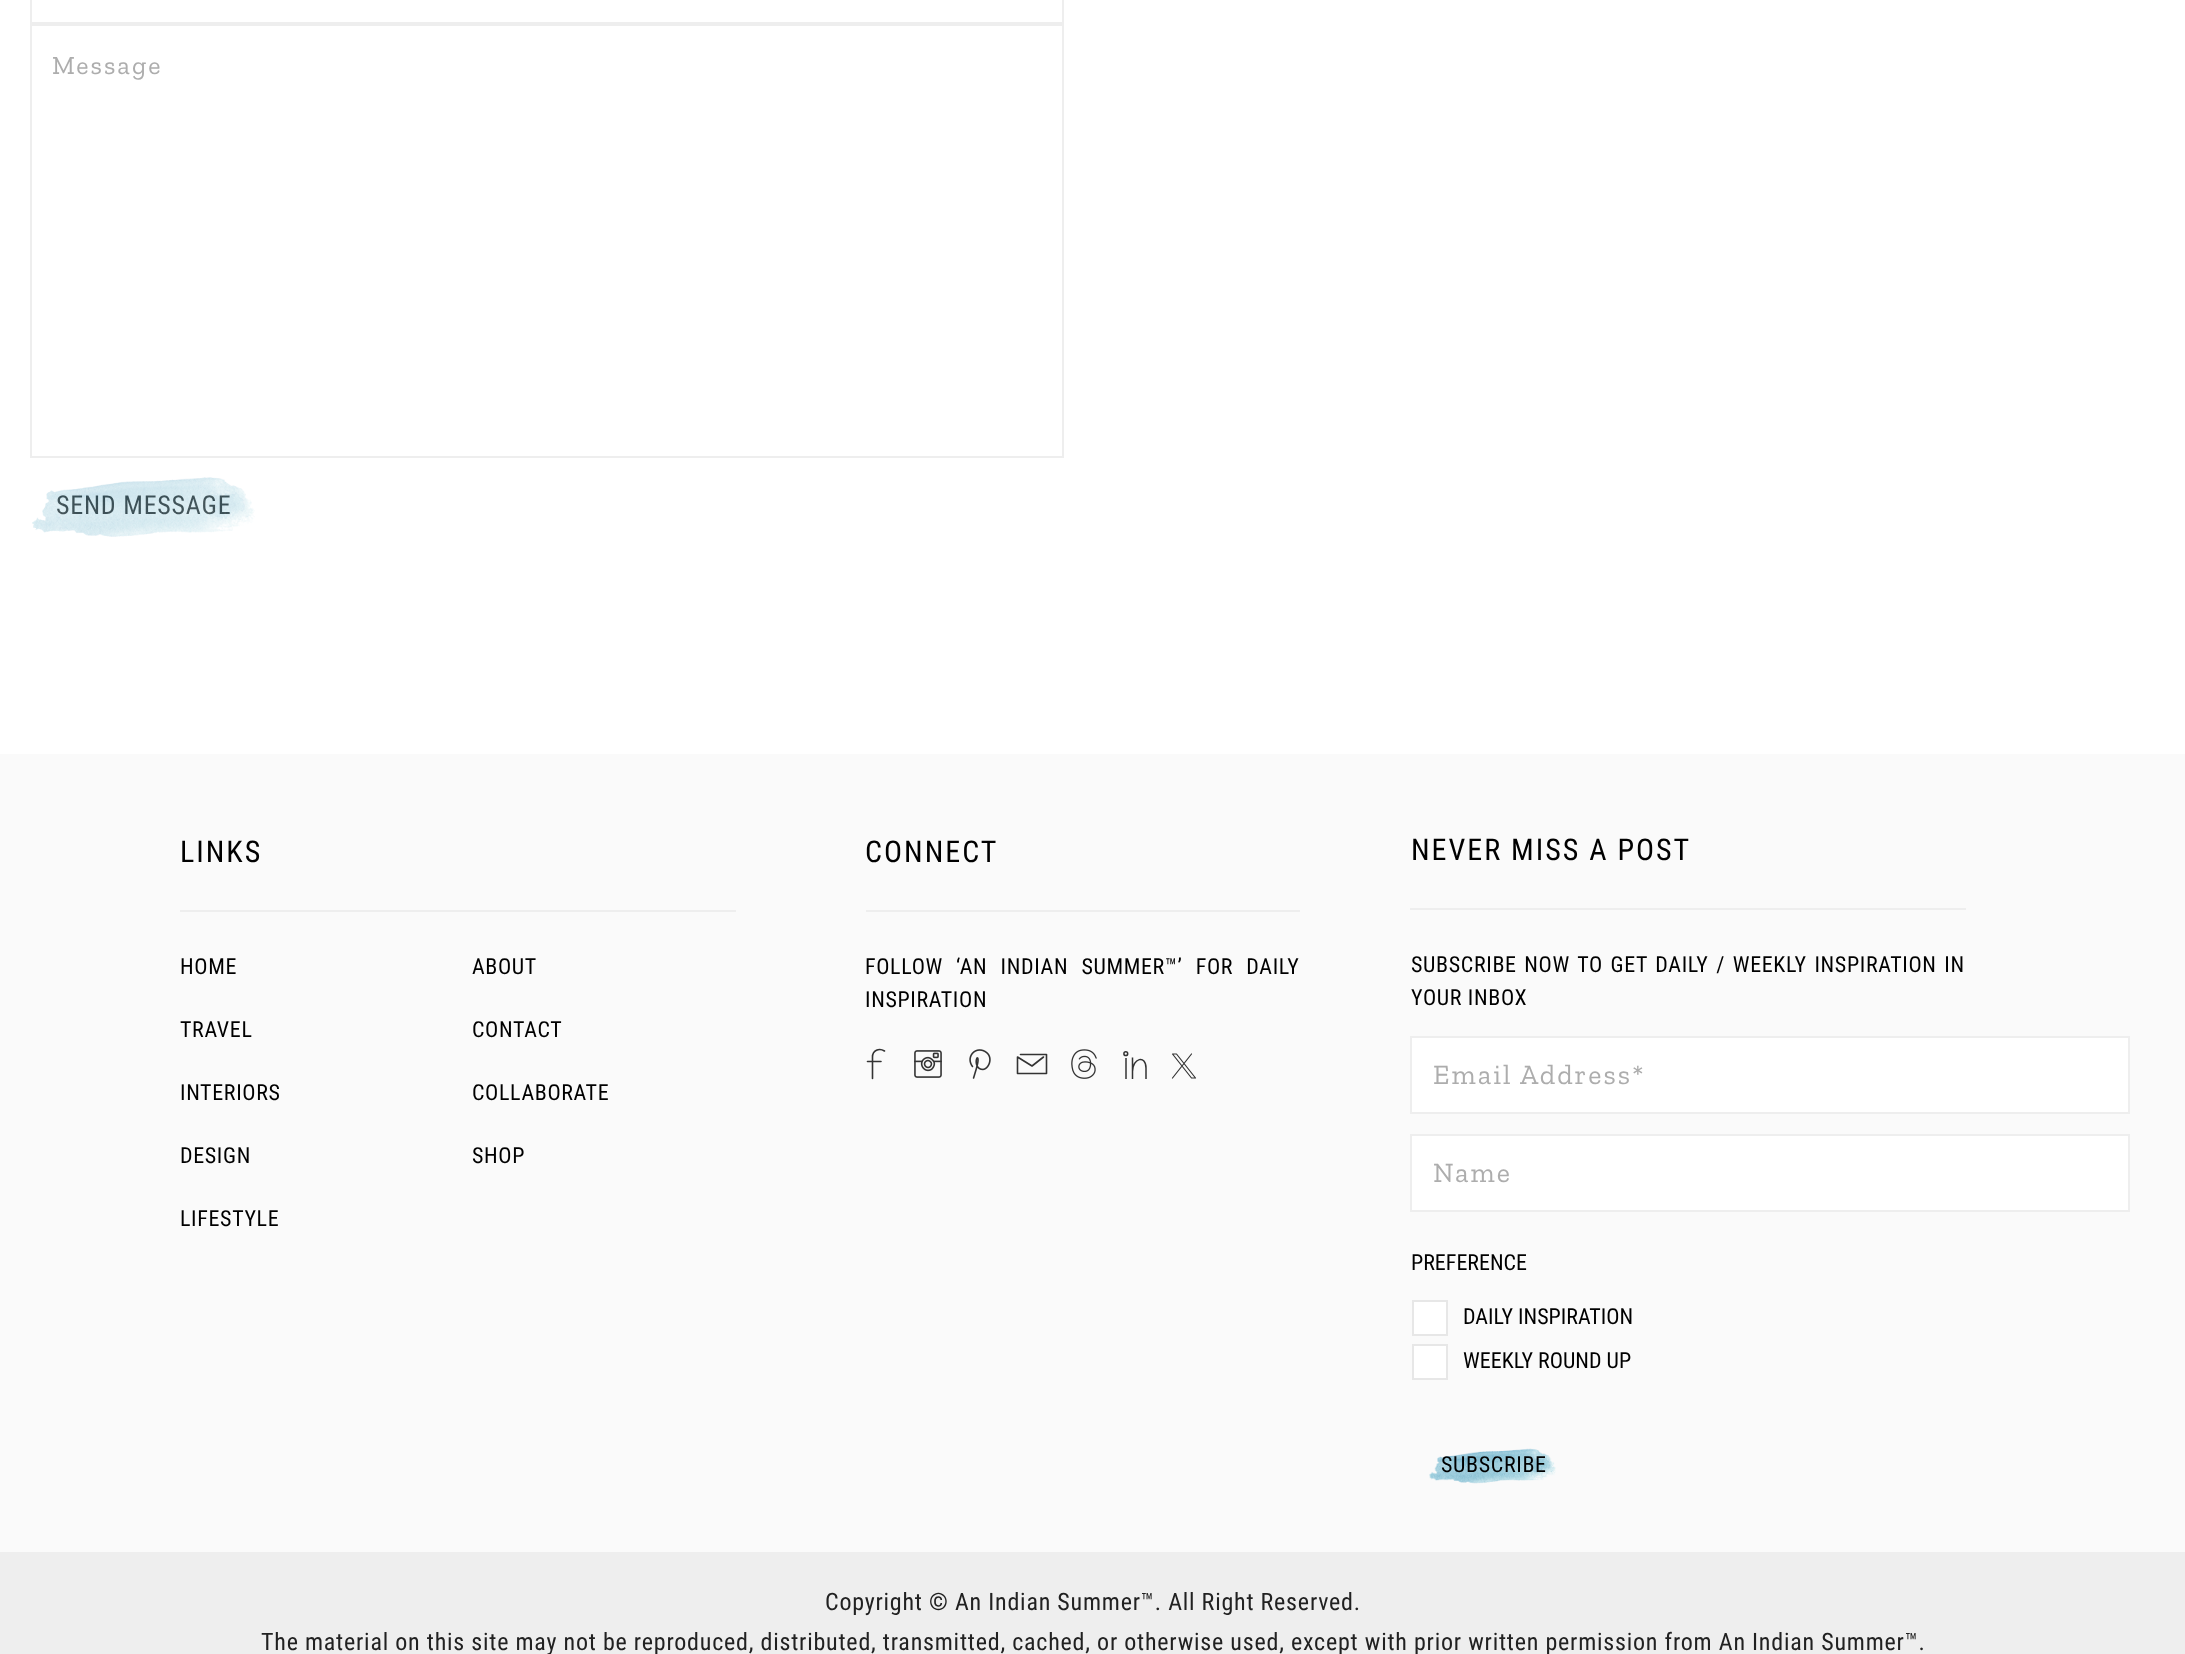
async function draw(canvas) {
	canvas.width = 2185;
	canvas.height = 1654;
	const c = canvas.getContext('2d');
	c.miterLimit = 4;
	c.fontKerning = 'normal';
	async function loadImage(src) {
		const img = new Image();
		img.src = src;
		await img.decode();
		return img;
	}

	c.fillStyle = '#fff';
	c.fillRect(0, 0, 2185, 1654);
	c.strokeStyle = '#eee';
	c.lineWidth = 2;
	c.strokeRect(31, -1, 1032, 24);
	c.strokeRect(31, 25, 1032, 432);
	c.letterSpacing = '2px';
	c.font = '26px Zilla Slab';
	c.fillStyle = '#adadad';
	c.fillText('Message', 52, 74);
	c.letterSpacing = '0.78px';
	c.font = '26px Roboto Condensed';
	c.fillStyle = '#000';
	c.fillText('SEND MESSAGE', 56, 514);
	c.drawImage(await loadImage('img1.png'), 32, 477, 223, 60);
	c.fillStyle = '#fafafa';
	c.fillRect(0, 754, 2185, 798);
	c.fillStyle = '#eee';
	c.fillRect(180, 910, 556, 2);
	c.letterSpacing = '2px';
	c.font = '30px Roboto Condensed';
	c.fillStyle = '#000';
	c.fillText('LINKS', 180, 862);
	c.letterSpacing = '0.65px';
	c.font = '22px Roboto Condensed';
	for (const [text, x, y] of [
		['HOME', 180, 974],
		['ABOUT', 472, 974],
		['TRAVEL', 180, 1037],
		['CONTACT', 472, 1037],
		['INTERIORS', 180, 1100],
		['COLLABORATE', 472, 1100],
		['DESIGN', 180, 1163],
		['SHOP', 472, 1163],
		['LIFESTYLE', 180, 1226],
	]) {
		c.fillText(text, x, y);
	}
	c.fillStyle = '#eee';
	c.fillRect(866, 910, 434, 2);
	c.letterSpacing = '2px';
	c.font = '30px Roboto Condensed';
	c.fillStyle = '#000';
	c.fillText('CONNECT', 865, 862);
	c.letterSpacing = '0.65px';
	c.wordSpacing = '7.5px';
	c.font = '22px Roboto Condensed';
	c.fillText('FOLLOW ‘AN INDIAN SUMMER™’ FOR DAILY', 865, 974);
	c.wordSpacing = '0px';
	c.fillText('INSPIRATION', 865, 1007);
	c.beginPath();
	c.moveTo(872.5, 1078.5);
	c.lineTo(872.5, 1057);
	c.bezierCurveTo(872.5, 1050.5, 879, 1047.5, 884.5, 1051);
	c.moveTo(867.5, 1061.5);
	c.lineTo(881, 1061.5);
	c.strokeStyle = '#333';
	c.lineWidth = 1.6;
	c.lineCap = 'round';
	c.lineJoin = 'round';
	c.stroke();
	c.drawImage(await loadImage('img2.png'), 914, 1050, 28, 28);
	c.drawImage(await loadImage('img3.png'), 969, 1049, 22, 30);
	c.beginPath();
	c.moveTo(1020.5, 1054.5);
	c.lineTo(1046.5, 1054.5);
	c.lineTo(1046.5, 1073.5);
	c.lineTo(1017.5, 1073.5);
	c.lineTo(1017.5, 1057);
	c.lineTo(1032, 1066);
	c.lineTo(1043.5, 1057);
	c.stroke();
	c.drawImage(await loadImage('img4.png'), 1071, 1049, 26, 30);
	c.beginPath();
	c.moveTo(1146, 1079);
	c.lineTo(1146, 1068);
	c.bezierCurveTo(1146, 1054.5, 1132.5, 1058, 1132.5, 1071.5);
	c.lineTo(1132.5, 1079);
	c.lineTo(1132.5, 1057.5);
	c.lineWidth = 1.5;
	c.lineCap = 'butt';
	c.lineJoin = 'miter';
	c.stroke();
	c.fillStyle = '#656565';
	c.fillRect(1125, 1058, 2, 21);
	c.beginPath();
	c.arc(1125.8, 1053.7, 1.9, 0, 2 * Math.PI);
	c.stroke();
	c.beginPath();
	c.moveTo(1195.5, 1078);
	c.lineTo(1176.5, 1054);
	c.lineTo(1172.5, 1054);
	c.lineTo(1191.5, 1078);
	c.closePath();
	c.moveTo(1172.5, 1078);
	c.lineTo(1191.5, 1054);
	c.lineWidth = 1.2;
	c.lineCap = 'round';
	c.lineJoin = 'round';
	c.stroke();
	c.fillStyle = '#eee';
	c.fillRect(1410, 908, 556, 2);
	c.letterSpacing = '2px';
	c.font = '30px Roboto Condensed';
	c.fillStyle = '#000';
	c.fillText('NEVER MISS A POST', 1411, 860);
	c.letterSpacing = '0.65px';
	c.wordSpacing = '2px';
	c.font = '22px Roboto Condensed';
	c.fillText('SUBSCRIBE NOW TO GET DAILY / WEEKLY INSPIRATION IN', 1411, 972);
	c.wordSpacing = '0px';
	c.fillText('YOUR INBOX', 1411, 1005);
	c.fillStyle = '#fff';
	c.beginPath();
	c.rect(1411, 1037, 718, 76);
	c.fill();
	c.strokeStyle = '#eee';
	c.lineWidth = 2;
	c.lineJoin = 'miter';
	c.stroke();
	c.letterSpacing = '2px';
	c.font = '28px Zilla Slab';
	c.fillStyle = '#adadad';
	c.fillText('Email Address*', 1433, 1084);
	c.fillStyle = '#fff';
	c.beginPath();
	c.rect(1411, 1135, 718, 76);
	c.fill();
	c.stroke();
	c.fillStyle = '#adadad';
	c.fillText('Name', 1433, 1182);
	c.letterSpacing = '0px';
	c.font = '22px Roboto Condensed';
	c.fillStyle = '#000';
	c.fillText('PREFERENCE', 1411, 1270);
	c.fillStyle = '#fff';
	c.beginPath();
	c.rect(1413, 1301, 34, 34);
	c.fill();
	c.strokeStyle = '#e7e7e7';
	c.stroke();
	c.fillStyle = '#000';
	c.fillText('DAILY INSPIRATION', 1463, 1324);
	c.fillStyle = '#fff';
	c.beginPath();
	c.rect(1413, 1345, 34, 34);
	c.fill();
	c.stroke();
	c.fillStyle = '#000';
	c.fillText('WEEKLY ROUND UP', 1463, 1368);
	c.drawImage(await loadImage('img5.png'), 1429, 1448, 127, 36);
	c.letterSpacing = '0.65px';
	c.fillText('SUBSCRIBE', 1441, 1472);
	c.fillStyle = '#eee';
	c.fillRect(0, 1552, 2185, 102);
	c.letterSpacing = '0.78px';
	c.font = '24px Roboto Condensed';
	c.fillStyle = '#212121';
	c.fillText('Copyright © An Indian Summer™. All Right Reserved.', 825, 1610);
	c.fillText('The material on this site may not be reproduced, distributed, transmitted, cached, or otherwise used, except with prior written permission from An Indian Summer™.', 261, 1650);
}

draw(document.querySelector('canvas'));
